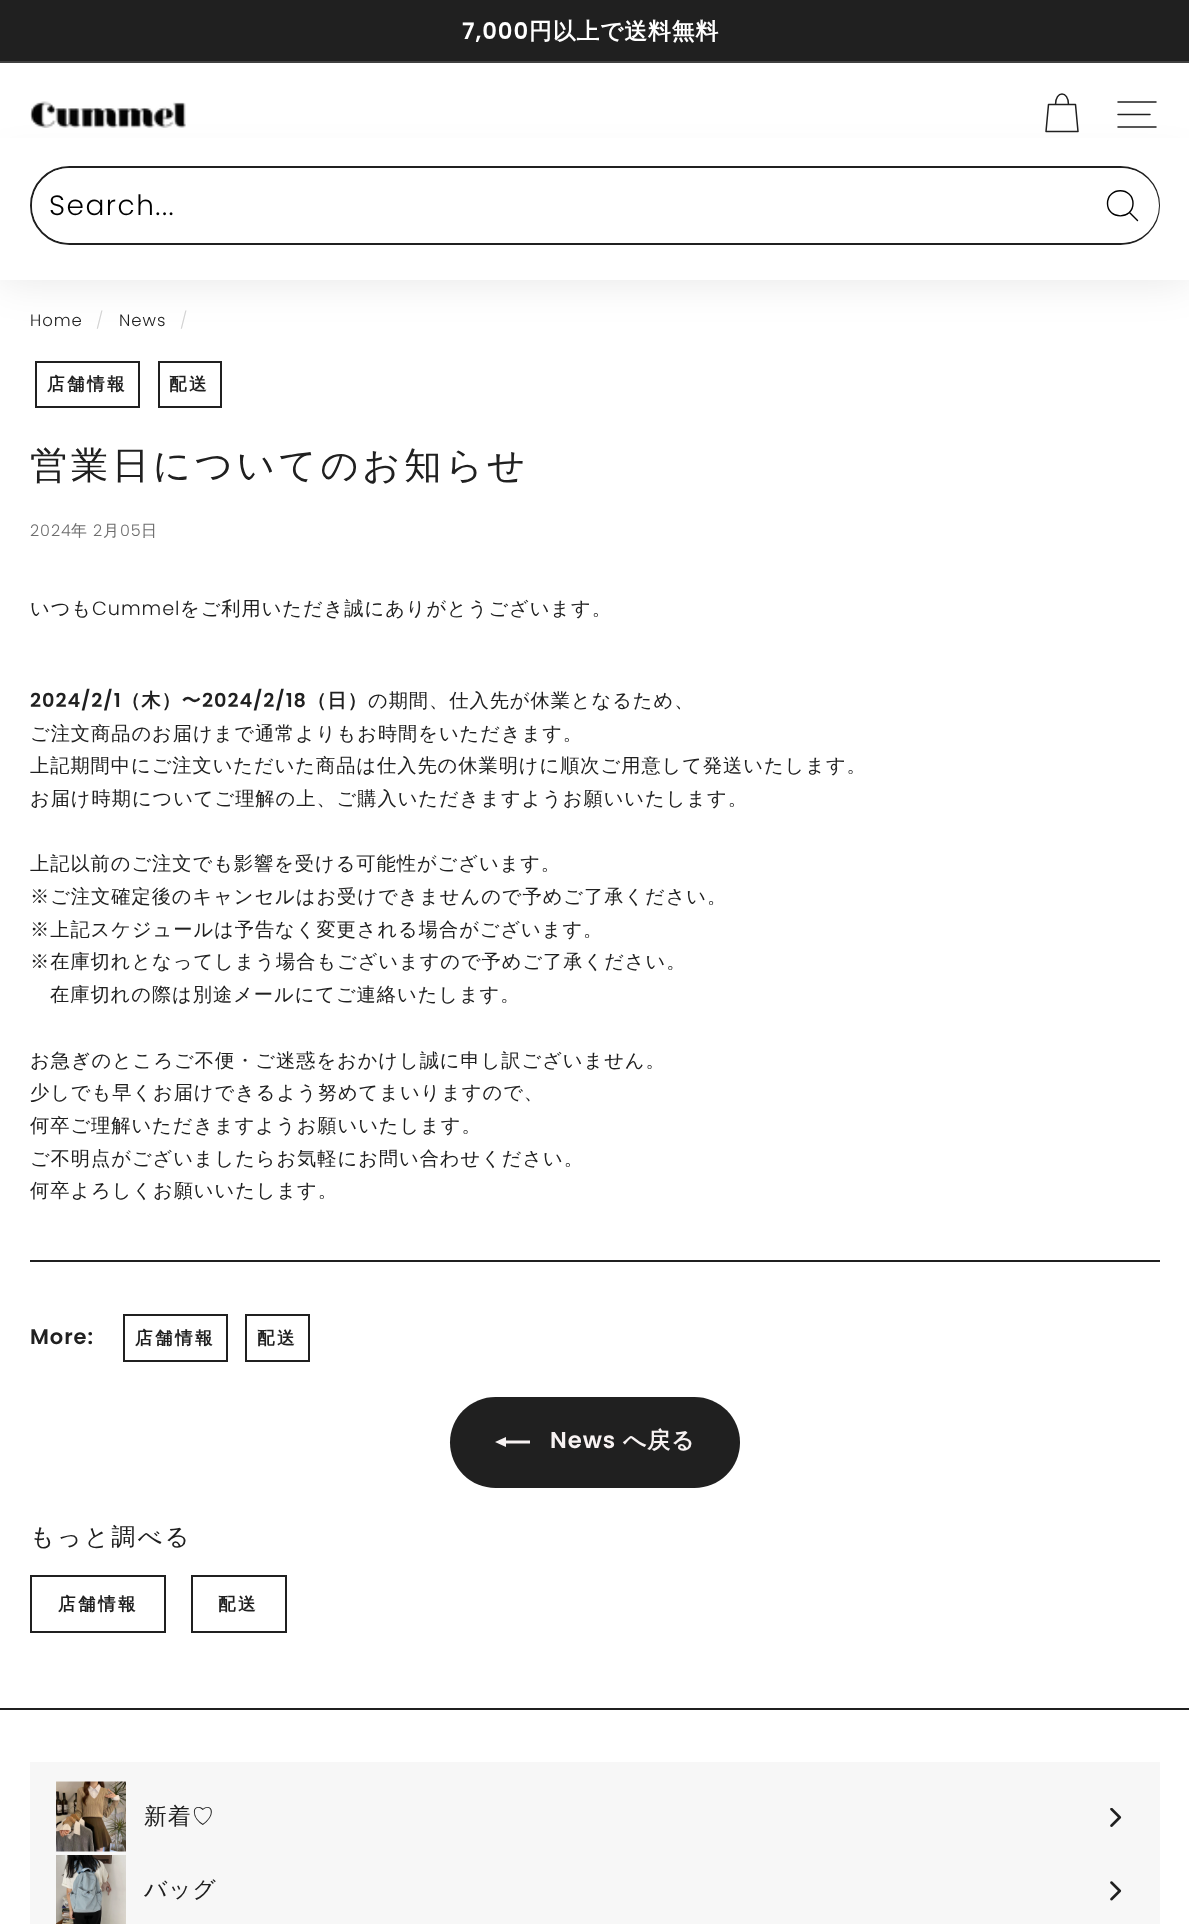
async function draw(canvas) {
	canvas.width = 1189;
	canvas.height = 1924;
	const c = canvas.getContext('2d');
	c.miterLimit = 4;
	c.fontKerning = 'normal';
	async function loadImage(src) {
		const img = new Image();
		img.src = src;
		await img.decode();
		return img;
	}

	c.fillStyle = '#fff';
	c.fillRect(0, 0, 1189, 1924);
	c.fillStyle = '#202020';
	c.fillRect(0, 0, 1189, 61);
	c.letterSpacing = '0.95px';
	c.font = '600 22.75px Poppins';
	c.fillStyle = '#fff';
	c.fillText('7,000', 462, 39);
	c.font = 'bold 22.75px WenQuanYi Zen Hei';
	c.fillText('円以上で送料無料', 529, 39);
	c.fillStyle = '#414141';
	c.fillRect(0, 61, 1189, 2);
	c.fillStyle = '#0000001a';
	c.filter = 'blur(22px)';
	c.beginPath();
	c.rect(0, 166, 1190, 114);
	c.fill();
	c.filter = 'none';
	c.drawImage(await loadImage('img1.png'), 30, 101, 156, 27);
	c.beginPath();
	c.moveTo(1055.5, 104.5);
	c.bezierCurveTo(1055.5, 90.5, 1068.5, 90.5, 1068.5, 104.5);
	c.moveTo(1048.5, 104.5);
	c.lineTo(1075.5, 104.5);
	c.lineTo(1078, 131.5);
	c.lineTo(1046, 131.5);
	c.closePath();
	c.strokeStyle = '#202020';
	c.lineWidth = 1.5;
	c.lineCap = 'round';
	c.lineJoin = 'round';
	c.stroke();
	c.beginPath();
	c.moveTo(1118, 102);
	c.lineTo(1156, 102);
	c.moveTo(1118, 114.5);
	c.lineTo(1150, 114.5);
	c.moveTo(1118, 127);
	c.lineTo(1156, 127);
	c.stroke();
	c.fillStyle = '#fff';
	c.fillRect(0, 138, 1189, 142);
	c.beginPath();
	c.roundRect(31, 167, 1128, 77, 38.5);
	c.lineWidth = 2;
	c.lineJoin = 'miter';
	c.stroke();
	c.beginPath();
	c.roundRect(32, 168, 1127, 75, 37.5);
	c.fill();
	c.letterSpacing = '1.5px';
	c.font = '300 28px Poppins';
	c.fillStyle = '#000';
	c.fillText('Search...', 49, 215);
	c.beginPath();
	c.moveTo(1133, 203.5);
	c.bezierCurveTo(1133, 220, 1107.5, 220, 1107.5, 203.5);
	c.bezierCurveTo(1107.5, 186.5, 1133, 186.5, 1133, 203.5);
	c.closePath();
	c.moveTo(1137.5, 220.5);
	c.lineTo(1129.5, 212.5);
	c.strokeStyle = '#000';
	c.lineWidth = 1.4;
	c.lineJoin = 'round';
	c.stroke();
	c.letterSpacing = '0.95px';
	c.font = '300 16.5px Poppins';
	c.fillStyle = '#202020';
	c.fillText('Home', 30, 326);
	c.fillStyle = '#d2d2d2';
	c.fillText('/', 96, 326);
	c.fillStyle = '#202020';
	c.fillText('News', 119, 326);
	c.fillStyle = '#d2d2d2';
	c.fillText('/', 180, 326);
	c.strokeStyle = '#202020';
	c.lineWidth = 2;
	c.lineJoin = 'miter';
	c.strokeRect(36, 362, 103, 45);
	c.letterSpacing = '2.5px';
	c.font = 'bold 17.5px WenQuanYi Zen Hei';
	c.fillStyle = '#202020';
	c.fillText('店舗情報', 47, 390);
	c.strokeRect(159, 362, 62, 45);
	c.fillText('配送', 169, 390);
	c.letterSpacing = '3.75px';
	c.font = '500 37.25px WenQuanYi Zen Hei';
	c.fillText('営業日についてのお知らせ', 30, 478);
	c.letterSpacing = '0.95px';
	c.font = '300 16px Poppins';
	c.fillStyle = '#6e6e6e';
	c.fillText('2024', 30, 536);
	c.font = '500 16px WenQuanYi Zen Hei';
	c.fillText('年', 71, 536);
	c.font = '300 16px Poppins';
	c.fillText('2', 93, 536);
	c.font = '500 16px WenQuanYi Zen Hei';
	c.fillText('月', 103, 536);
	c.font = '300 16px Poppins';
	c.fillText('05', 120, 536);
	c.font = '500 16px WenQuanYi Zen Hei';
	c.fillText('日', 141, 536);
	c.font = '500 19.25px WenQuanYi Zen Hei';
	c.fillStyle = '#202020';
	c.fillText('いつも', 30, 615);
	c.font = '300 19.25px Poppins';
	c.fillText('Cummel', 92, 615);
	c.font = '500 19.25px WenQuanYi Zen Hei';
	c.fillText('をご利用いただき誠にありがとうございます。', 180, 615);
	c.font = '600 19.25px Poppins';
	c.fillText('2024/2/1', 30, 707);
	c.font = 'bold 19.25px WenQuanYi Zen Hei';
	c.fillText('（木）〜', 121, 707);
	c.font = '600 19.25px Poppins';
	c.fillText('2024/2/18', 202, 707);
	c.font = 'bold 19.25px WenQuanYi Zen Hei';
	c.fillText('（日）', 307, 707);
	c.font = '500 19.25px WenQuanYi Zen Hei';
	for (const [text, x, y] of [
		['の期間、仕入先が休業となるため、', 368, 707],
		['ご注文商品のお届けまで通常よりもお時間をいただきます。', 30, 740],
		['上記期間中にご注文いただいた商品は仕入先の休業明けに順次ご用意して発送いたします。', 30, 772],
		['お届け時期についてご理解の上、ご購入いただきますようお願いいたします。', 30, 805],
		['上記以前のご注文でも影響を受ける可能性がございます。', 30, 870],
		['※ご注文確定後のキャンセルはお受けできませんので予めご了承ください。', 30, 903],
		['※上記スケジュールは予告なく変更される場合がございます。', 30, 936],
		['※在庫切れとなってしまう場合もございますので予めご了承ください。', 30, 968],
		['在庫切れの際は別途メールにてご連絡いたします。', 50, 1001],
		['お急ぎのところご不便・ご迷惑をおかけし誠に申し訳ございません。', 30, 1067],
		['少しでも早くお届けできるよう努めてまいりますので、', 30, 1099],
		['何卒ご理解いただきますようお願いいたします。', 30, 1132],
		['ご不明点がございましたらお気軽にお問い合わせください。', 30, 1165],
		['何卒よろしくお願いいたします。', 30, 1197],
	]) {
		c.fillText(text, x, y);
	}
	c.fillRect(30, 1260, 1130, 2);
	c.font = '600 21px Poppins';
	c.fillText('More:', 30, 1344);
	c.strokeRect(124, 1315, 103, 46);
	c.letterSpacing = '2.5px';
	c.font = 'bold 17.5px WenQuanYi Zen Hei';
	c.fillText('店舗情報', 135, 1344);
	c.strokeRect(246, 1315, 63, 46);
	c.fillText('配送', 257, 1344);
	c.beginPath();
	c.roundRect(450, 1397, 290, 91, 45.5);
	c.fill();
	c.fillStyle = '#f7f2f2';
	c.beginPath();
	c.moveTo(530, 1440.5);
	c.lineTo(530, 1443.5);
	c.lineTo(506, 1443.5);
	c.lineTo(506, 1447);
	c.lineTo(495, 1442);
	c.lineTo(506, 1437);
	c.lineTo(506, 1440.5);
	c.closePath();
	c.fill();
	c.letterSpacing = '0.95px';
	c.font = '600 22.75px Poppins';
	c.fillText('News', 550, 1448);
	c.font = 'bold 22.75px WenQuanYi Zen Hei';
	c.fillText('へ戻る', 623, 1448);
	c.letterSpacing = '2.5px';
	c.font = '500 24px WenQuanYi Zen Hei';
	c.fillStyle = '#202020';
	c.fillText('もっと調べる', 30, 1545);
	c.strokeRect(31, 1576, 134, 56);
	c.font = 'bold 17.5px WenQuanYi Zen Hei';
	c.fillText('店舗情報', 58, 1610);
	c.strokeRect(192, 1576, 94, 56);
	c.fillText('配送', 218, 1610);
	c.fillRect(0, 1708, 1189, 2);
	c.drawImage(await loadImage('img2.png'), 56, 1781, 70, 71);
	c.drawImage(await loadImage('img3.png'), 1110, 1808, 12, 19);
	c.drawImage(await loadImage('img4.png'), 56, 1855, 70, 69);
	c.drawImage(await loadImage('img5.png'), 1110, 1881, 12, 20);
	c.fillStyle = '#00000008';
	c.fillRect(30, 1762, 1130, 162);
	c.letterSpacing = '0.95px';
	c.font = '500 22.75px WenQuanYi Zen Hei';
	c.fillStyle = '#202020';
	c.fillText('新着♡', 144, 1824);
	c.fillText('バッグ', 144, 1897);
}

draw(document.querySelector('canvas'));
